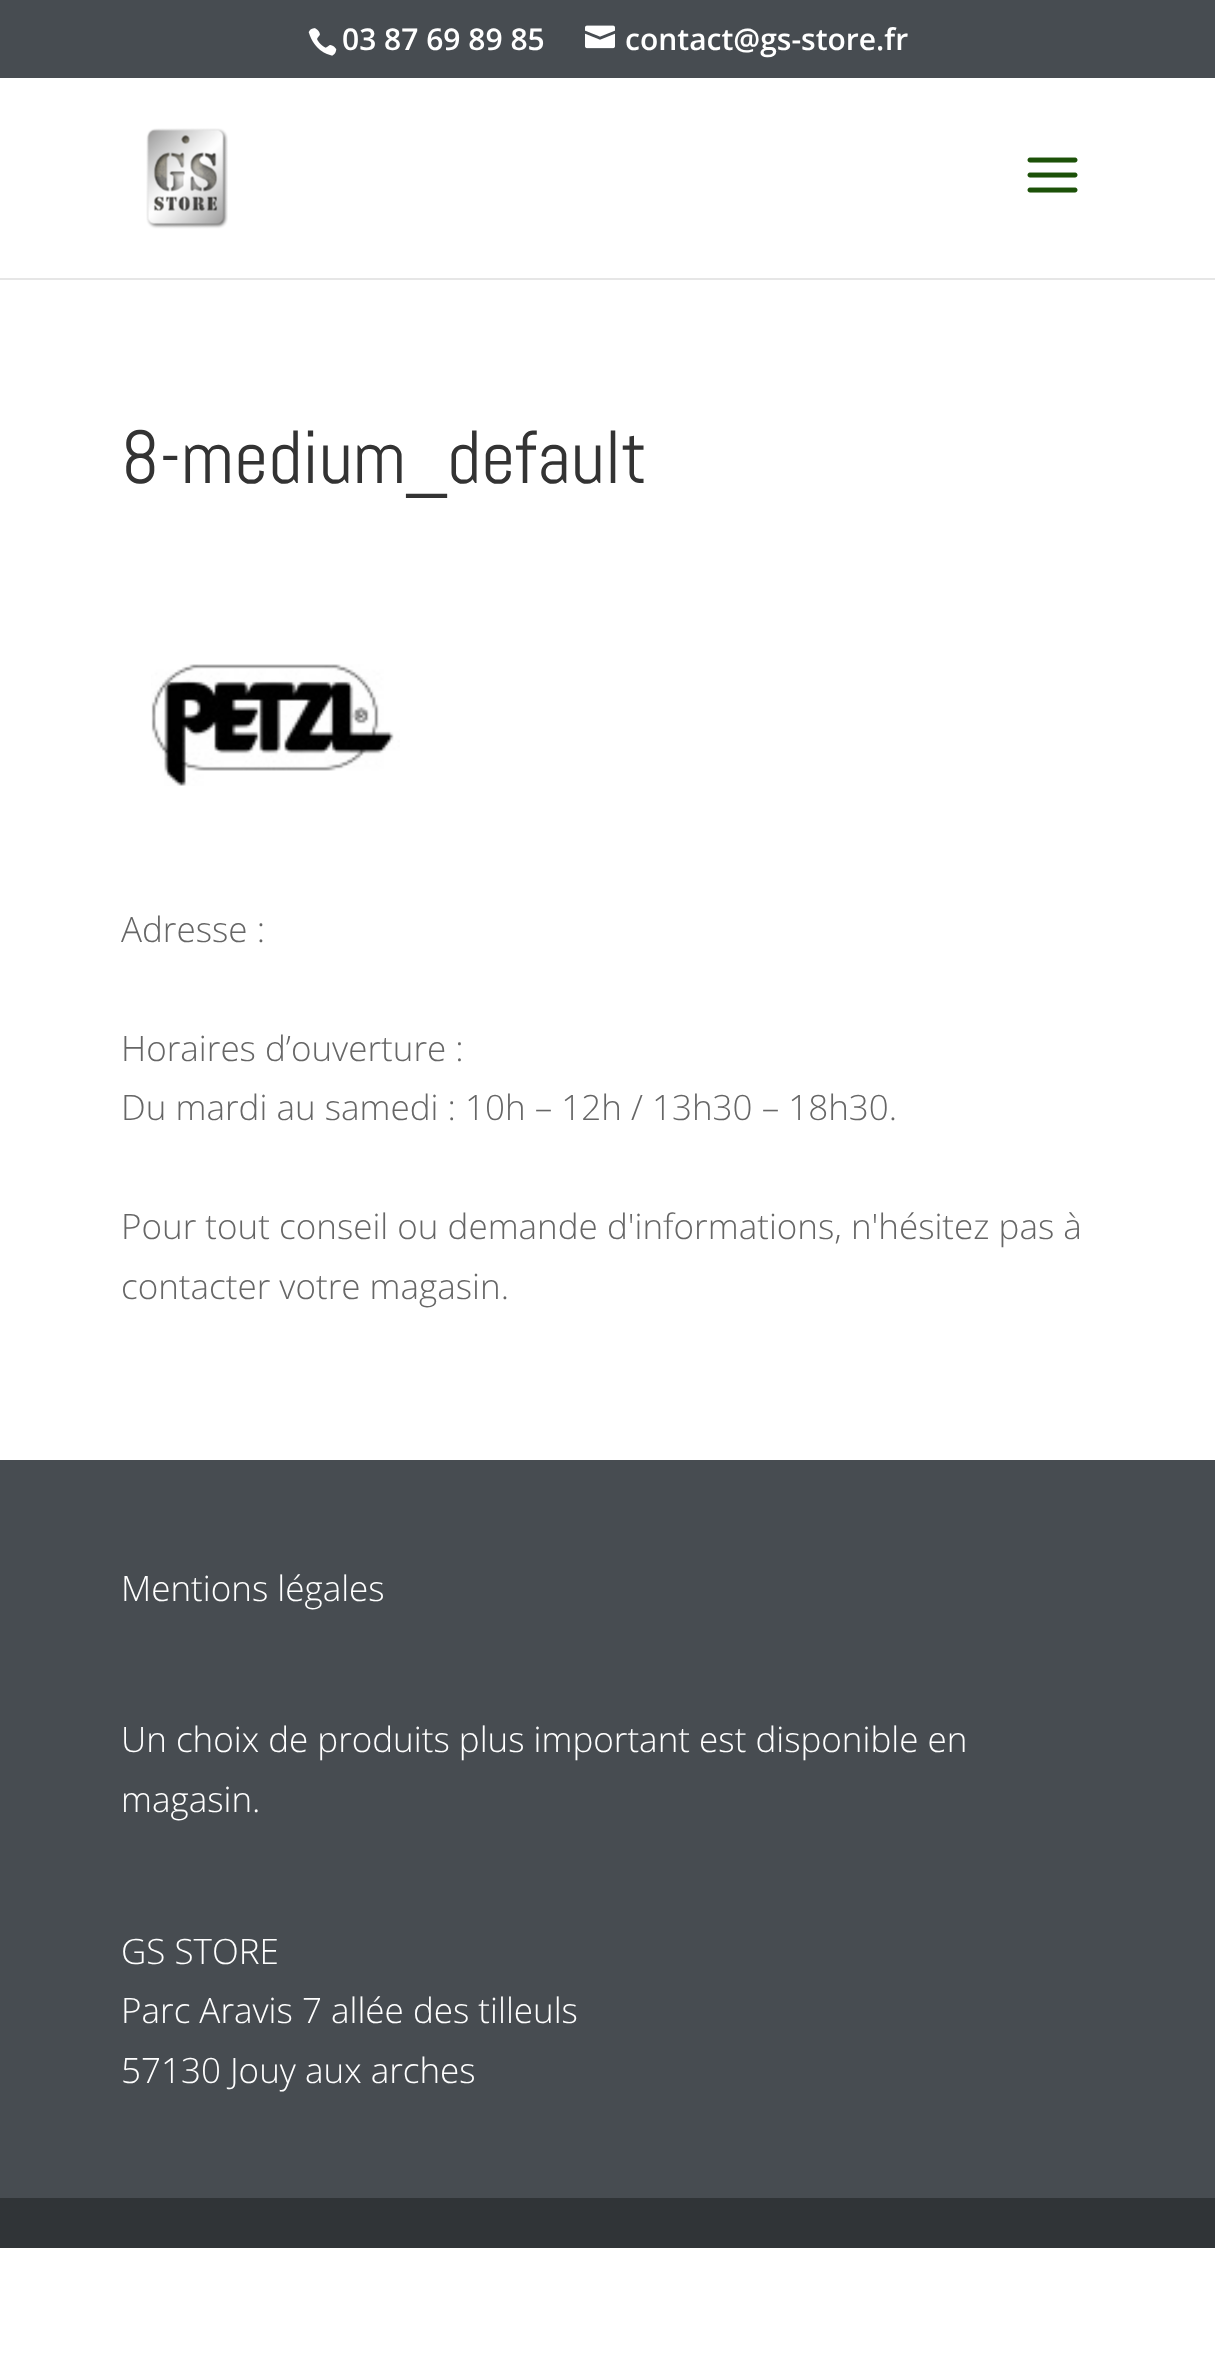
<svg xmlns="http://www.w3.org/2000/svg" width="1215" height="2364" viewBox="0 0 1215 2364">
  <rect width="100%" height="100%" fill="rgb(255,255,255)"/>
  <rect x="0" y="0" width="1215" height="78" fill="rgb(71,76,81)"/>
  <image x="308" y="28" width="29" height="28" href="pic1.png"/>
  <text x="342" y="50" font-family="Open Sans" font-size="30" font-weight="600" fill="rgb(255,255,255)">03 87 69 89 85</text>
  <image x="585" y="25" width="30" height="24" href="pic2.png"/>
  <text x="625" y="50" font-family="Open Sans" font-size="30" font-weight="600" fill="rgb(255,255,255)">contact@gs-store.fr</text>
  <rect x="0" y="278" width="1215" height="2" fill="rgb(230,230,230)"/>
  <image x="146" y="128" width="82" height="101" href="pic3.png"/>
  <image x="1027" y="157" width="51" height="36" href="pic4.png"/>
  <text x="121" y="483" font-family="Abel" font-size="75" fill="rgb(51,51,51)">8-medium_default</text>
  <image x="151" y="664" width="249" height="122" href="pic5.png"/>
  <g font-family="Open Sans" font-size="35" font-weight="300" fill="rgb(102,102,102)">
    <text x="121" y="942">Adresse :</text>
    <text>
      <tspan x="121" y="1061">Horaires d’ouverture :</tspan>
      <tspan x="121" y="1120">Du mardi au samedi : 10h – 12h / 13h30 – 18h30.</tspan>
    </text>
    <text>
      <tspan x="121" y="1239">Pour tout conseil ou demande d'informations, n'hésitez pas à</tspan>
      <tspan x="121" y="1299">contacter votre magasin.</tspan>
    </text>
  </g>
  <rect x="0" y="1460" width="1215" height="738" fill="rgb(71,76,81)"/>
  <g font-family="Open Sans" font-size="35" font-weight="300" fill="rgb(255,255,255)">
    <text x="121" y="1601">Mentions légales</text>
    <text>
      <tspan x="121" y="1752">Un choix de produits plus important est disponible en</tspan>
      <tspan x="121" y="1812">magasin.</tspan>
    </text>
    <text>
      <tspan x="121" y="1964">GS STORE</tspan>
      <tspan x="121" y="2023">Parc Aravis 7 allée des tilleuls</tspan>
      <tspan x="121" y="2083">57130 Jouy aux arches</tspan>
    </text>
  </g>
  <rect x="0" y="2198" width="1215" height="50" fill="rgb(48,52,55)"/>
</svg>
